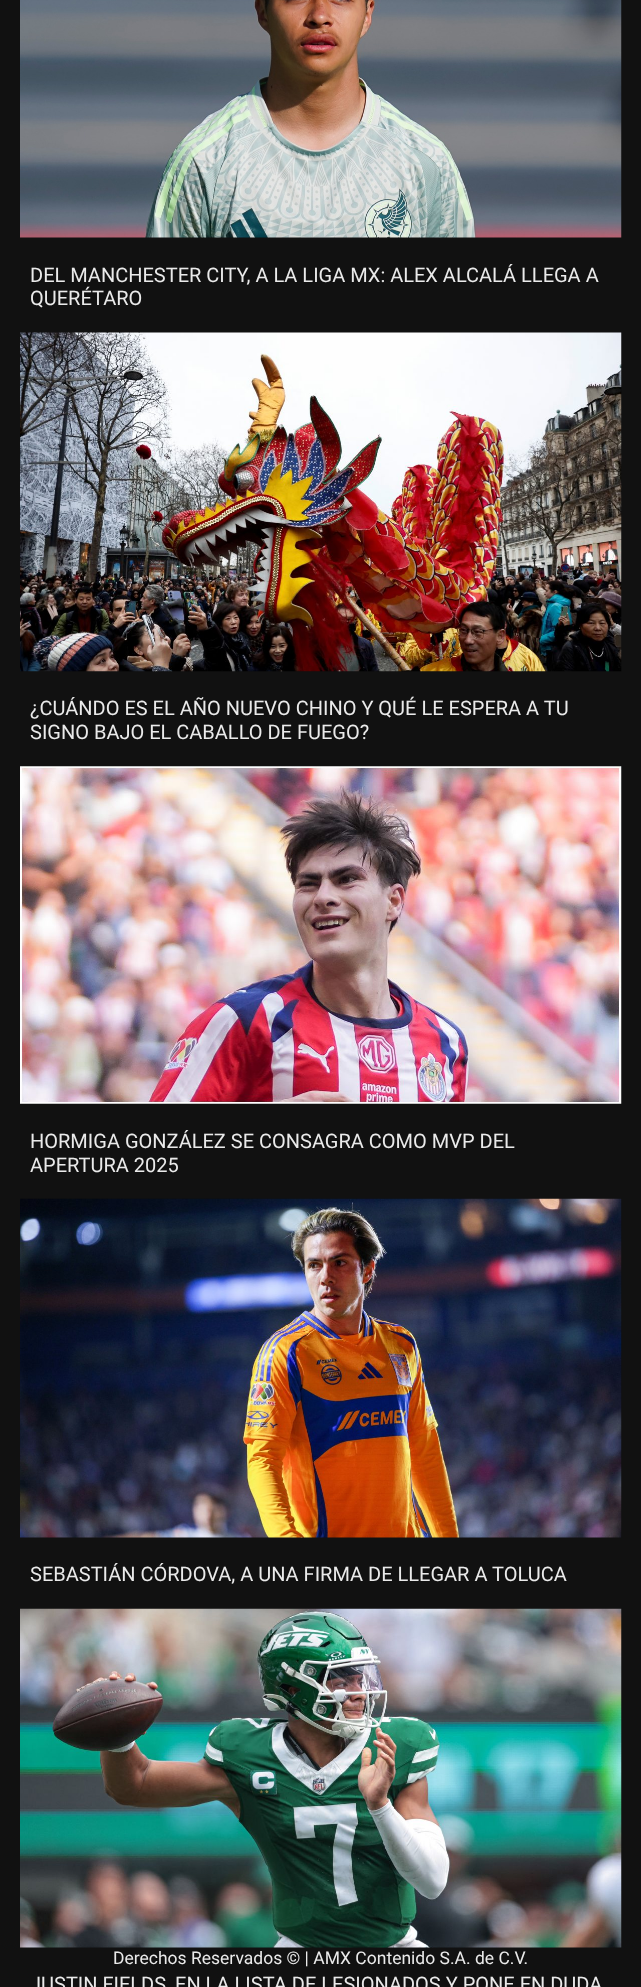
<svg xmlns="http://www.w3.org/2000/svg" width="641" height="1987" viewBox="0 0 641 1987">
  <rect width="100%" height="100%" fill="rgb(17,17,17)"/>
  <image x="20" y="0" width="602" height="238" href="pic1.png"/>
  <g font-family="Roboto" font-size="20" fill="rgb(234,234,234)">
    <text>
      <tspan x="30" y="282">DEL MANCHESTER CITY, A LA LIGA MX: ALEX ALCALÁ LLEGA A</tspan>
      <tspan x="30" y="305">QUERÉTARO</tspan>
    </text>
  </g>
  <image x="20" y="332" width="602" height="340" href="pic2.png"/>
  <g font-family="Roboto" font-size="20" fill="rgb(234,234,234)">
    <text>
      <tspan x="30" y="715">¿CUÁNDO ES EL AÑO NUEVO CHINO Y QUÉ LE ESPERA A TU</tspan>
      <tspan x="30" y="739">SIGNO BAJO EL CABALLO DE FUEGO?</tspan>
    </text>
  </g>
  <image x="20" y="766" width="602" height="338" href="pic3.png"/>
  <g font-family="Roboto" font-size="20" fill="rgb(234,234,234)">
    <text>
      <tspan x="30" y="1148">HORMIGA GONZÁLEZ SE CONSAGRA COMO MVP DEL</tspan>
      <tspan x="30" y="1172">APERTURA 2025</tspan>
    </text>
  </g>
  <image x="20" y="1198" width="602" height="340" href="pic4.png"/>
  <text x="30" y="1581" font-family="Roboto" font-size="20" fill="rgb(234,234,234)">SEBASTIÁN CÓRDOVA, A UNA FIRMA DE LLEGAR A TOLUCA</text>
  <image x="20" y="1608" width="602" height="340" href="pic5.png"/>
  <text x="30" y="1991" font-family="Roboto" font-size="20" fill="rgb(234,234,234)">JUSTIN FIELDS, EN LA LISTA DE LESIONADOS Y PONE EN DUDA</text>
  <text x="113" y="1964" font-family="Roboto" font-size="17.5" fill="rgb(234,234,234)">Derechos Reservados © | AMX Contenido S.A. de C.V.</text>
</svg>
